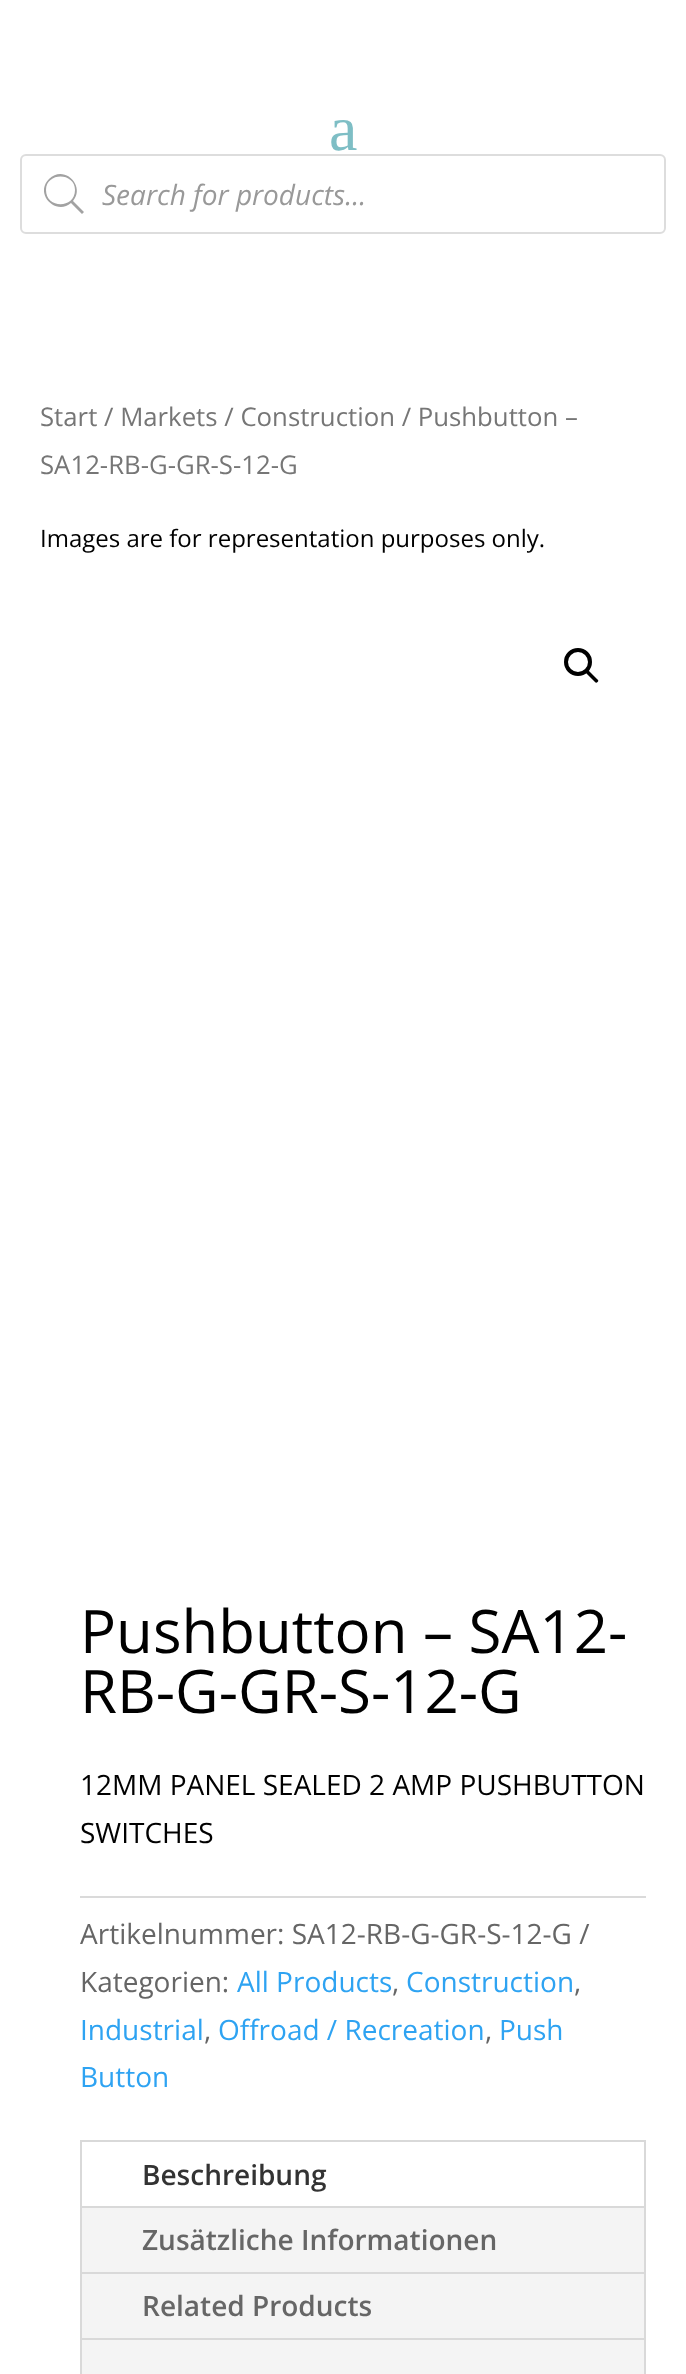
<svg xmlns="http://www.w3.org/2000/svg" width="686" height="2374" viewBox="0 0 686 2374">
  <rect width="100%" height="100%" fill="rgb(255,255,255)"/>
  <text x="329" y="150" font-family="Liberation Serif" font-size="64" fill="rgb(126,190,197)">a</text>
  <rect x="21" y="155" width="644" height="78" rx="5" fill="none" stroke="rgb(221,221,221)" stroke-width="2"/>
  <path d="M84 212L73 201C86 186 64 164 49 179C34 194 56 216 71 203L82 214ZM46 190C46 172 75 172 75 190C75 209 46 209 46 190Z" fill="rgb(162,162,162)"/>
  <text x="102" y="205" font-family="Open Sans" font-size="28" font-style="italic" fill="rgb(153,153,153)">Search for products...</text>
  <g font-family="Open Sans" font-size="25.75" fill="rgb(118,118,118)">
    <text>
      <tspan x="40" y="426">Start / Markets / Construction / Pushbutton –</tspan>
      <tspan x="40" y="474">SA12-RB-G-GR-S-12-G</tspan>
    </text>
  </g>
  <text x="40" y="547" font-family="Open Sans" font-size="24" fill="rgb(0,0,0)">Images are for representation purposes only.</text>
  <circle cx="578" cy="662" r="12" fill="none" stroke="rgb(0,0,0)" stroke-width="4"/>
  <path d="M586.5 671C587 670 588.5 670 589 671L597.5 679.5C598.5 680 598.5 681.5 597.5 682C597 683 595.5 683 595 682L586.5 673.5C585.5 673 585.5 671.5 586.5 671Z" fill="rgb(0,0,0)"/>
  <g font-family="Open Sans" font-size="60" fill="rgb(0,0,0)">
    <text>
      <tspan x="80" y="1653">Pushbutton – SA12-</tspan>
      <tspan x="80" y="1713">RB-G-GR-S-12-G</tspan>
    </text>
  </g>
  <g font-family="Open Sans" font-size="28" fill="rgb(0,0,0)">
    <text>
      <tspan x="80" y="1795">12MM PANEL SEALED 2 AMP PUSHBUTTON</tspan>
      <tspan x="80" y="1843">SWITCHES</tspan>
    </text>
  </g>
  <rect x="80" y="1896" width="566" height="2" fill="rgb(218,218,218)"/>
  <g font-family="Open Sans" font-size="28" fill="rgb(102,102,102)">
    <text>
      <tspan x="80" y="1944">Artikelnummer: SA12-RB-G-GR-S-12-G /</tspan>
      <tspan x="80" y="1992">Kategorien:</tspan>
    </text>
  </g>
  <text x="237" y="1992" font-family="Open Sans" font-size="28" fill="rgb(46,163,242)">All Products</text>
  <text x="392" y="1992" font-family="Open Sans" font-size="28" fill="rgb(102,102,102)">,</text>
  <text x="406" y="1992" font-family="Open Sans" font-size="28" fill="rgb(46,163,242)">Construction</text>
  <text x="574" y="1992" font-family="Open Sans" font-size="28" fill="rgb(102,102,102)">,</text>
  <text x="80" y="2040" font-family="Open Sans" font-size="28" fill="rgb(46,163,242)">Industrial</text>
  <text x="204" y="2040" font-family="Open Sans" font-size="28" fill="rgb(102,102,102)">,</text>
  <text x="218" y="2040" font-family="Open Sans" font-size="28" fill="rgb(46,163,242)">Offroad / Recreation</text>
  <text x="485" y="2040" font-family="Open Sans" font-size="28" fill="rgb(102,102,102)">,</text>
  <g font-family="Open Sans" font-size="28" fill="rgb(46,163,242)">
    <text x="499" y="2040">Push</text>
    <text x="80" y="2087">Button</text>
  </g>
  <rect x="81" y="2141" width="564" height="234" fill="none" stroke="rgb(217,217,217)" stroke-width="2"/>
  <rect x="82" y="2208" width="562" height="166" fill="rgb(244,244,244)"/>
  <rect x="82" y="2206" width="562" height="2" fill="rgb(217,217,217)"/>
  <text x="142" y="2185" font-family="Open Sans" font-size="28" font-weight="600" fill="rgb(51,51,51)">Beschreibung</text>
  <rect x="82" y="2272" width="562" height="2" fill="rgb(217,217,217)"/>
  <text x="142" y="2250" font-family="Open Sans" font-size="28" font-weight="600" fill="rgb(102,102,102)">Zusätzliche Informationen</text>
  <rect x="82" y="2338" width="562" height="2" fill="rgb(217,217,217)"/>
  <text x="142" y="2316" font-family="Open Sans" font-size="28" font-weight="600" fill="rgb(102,102,102)">Related Products</text>
</svg>
